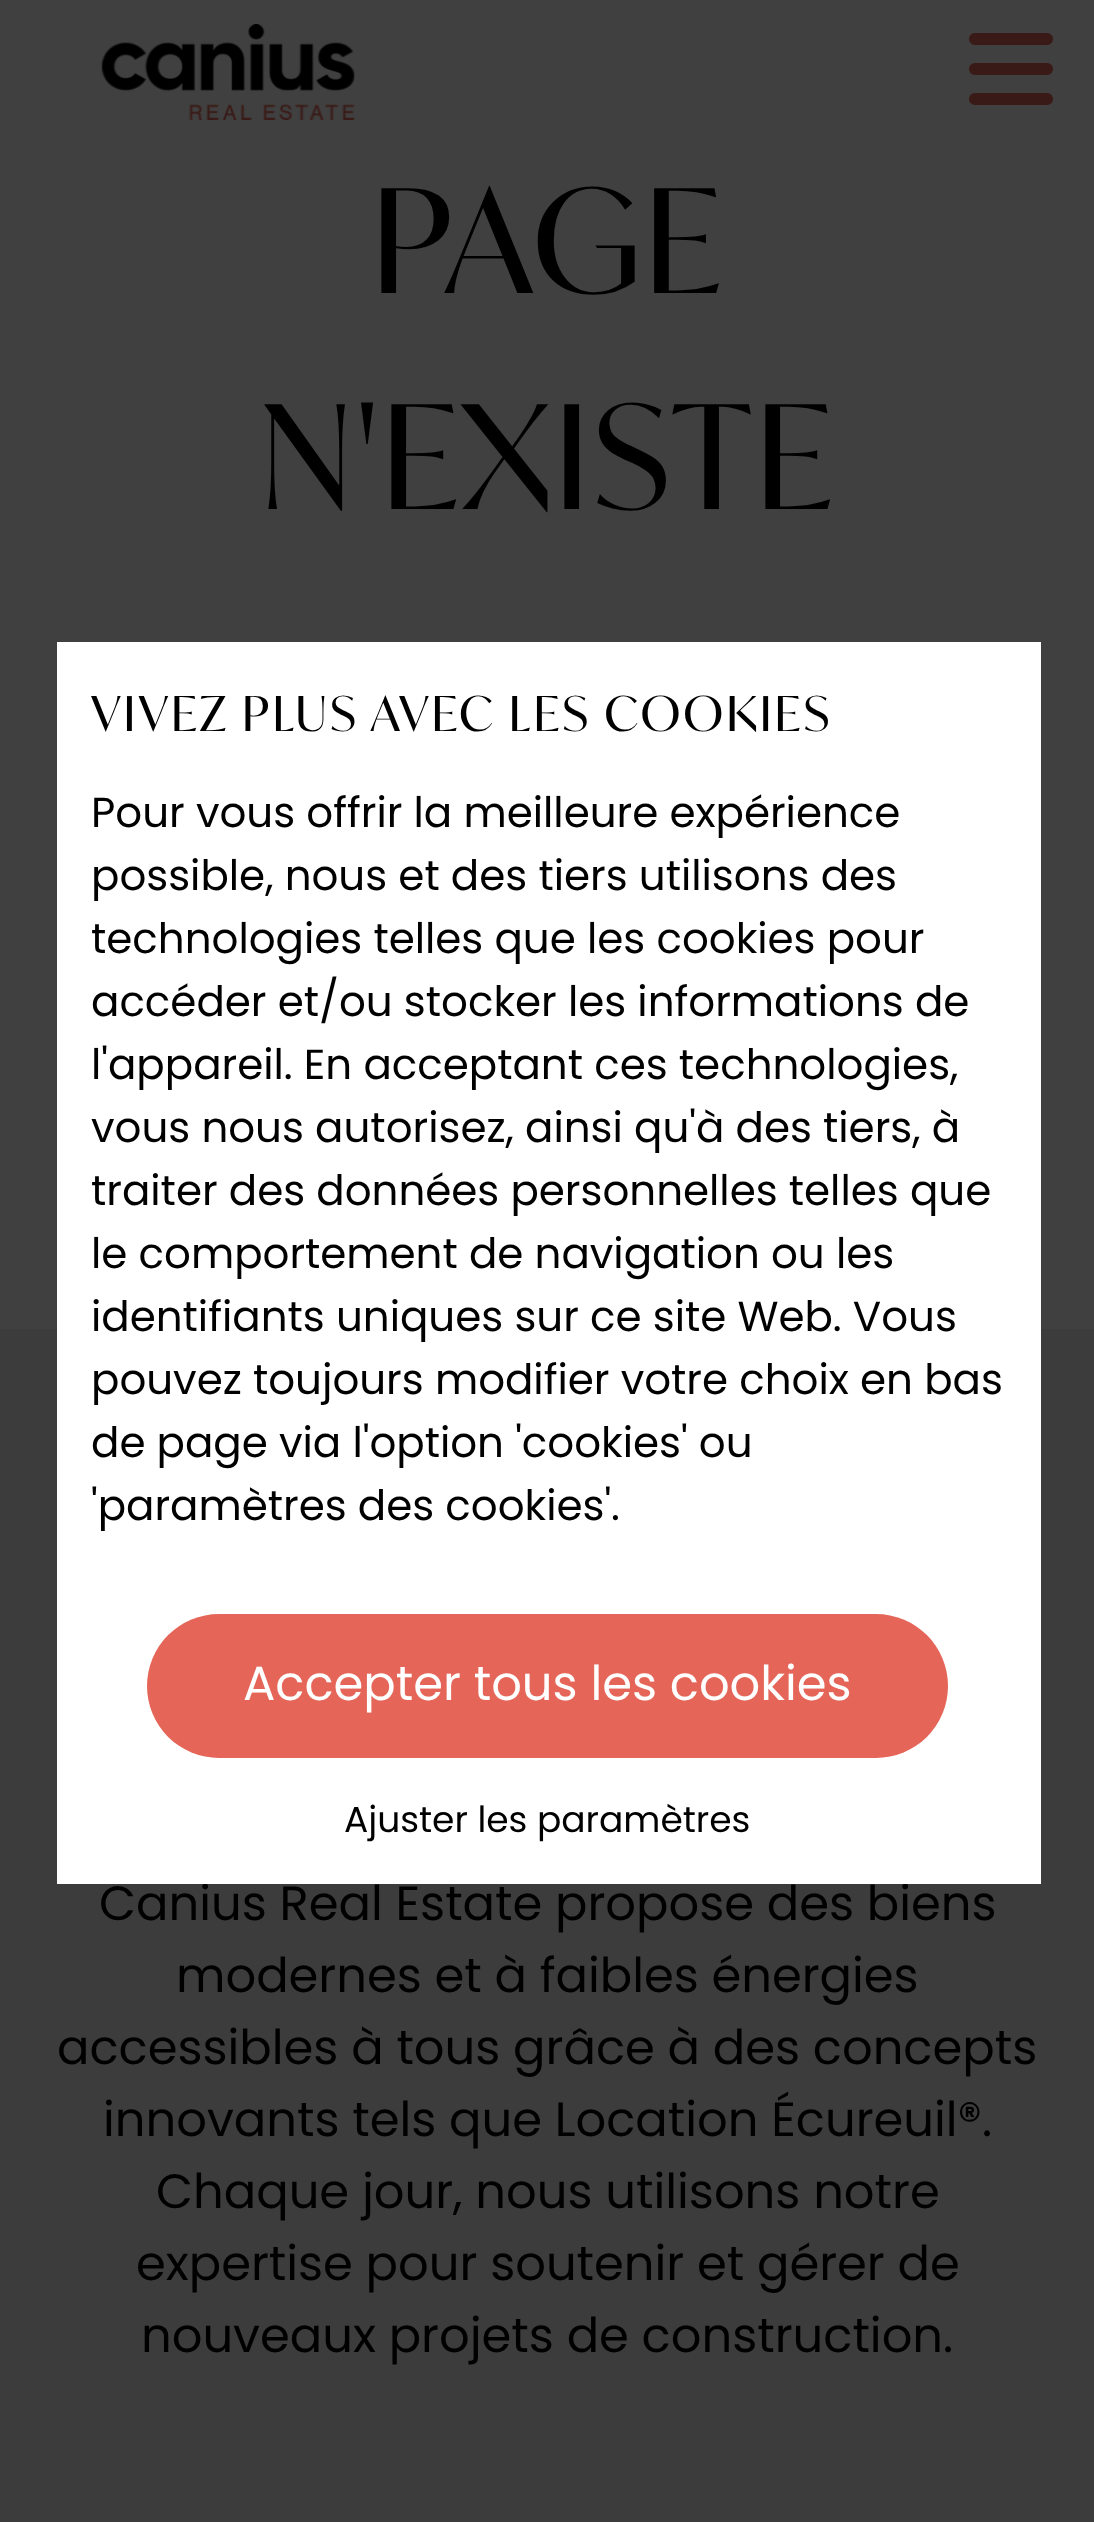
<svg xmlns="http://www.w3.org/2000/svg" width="1094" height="2522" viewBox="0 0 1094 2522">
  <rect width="100%" height="100%" fill="rgb(64,64,64)"/>
  <image x="101" y="24" width="254" height="96" href="pic1.png"/>
  <image x="969" y="33" width="84" height="72" href="pic2.png"/>
  <g font-family="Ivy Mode" font-size="144" letter-spacing="3" fill="rgb(0,0,0)">
    <text x="371" y="293">PAGE</text>
    <text x="259" y="509">N'EXISTE</text>
  </g>
  <rect x="0" y="1329" width="1094" height="1193" fill="rgb(60,60,60)"/>
  <text x="99" y="1920" font-family="Poppins" font-size="48" fill="rgb(0,0,0)">Canius Real Estate propose des biens</text>
  <rect x="57" y="642" width="984" height="1242" fill="rgb(255,255,255)"/>
  <text x="91" y="731" font-family="Ivy Mode" font-size="48" letter-spacing="3" fill="rgb(0,0,0)">VIVEZ PLUS AVEC LES COOKIES</text>
  <g font-family="Poppins" font-size="42" fill="rgb(0,0,0)">
    <text>
      <tspan x="91" y="827">Pour vous offrir la meilleure expérience</tspan>
      <tspan x="91" y="890">possible, nous et des tiers utilisons des</tspan>
      <tspan x="91" y="953">technologies telles que les cookies pour</tspan>
      <tspan x="91" y="1016">accéder et/ou stocker les informations de</tspan>
      <tspan x="91" y="1079">l'appareil. En acceptant ces technologies,</tspan>
      <tspan x="91" y="1142">vous nous autorisez, ainsi qu'à des tiers, à</tspan>
      <tspan x="91" y="1205">traiter des données personnelles telles que</tspan>
      <tspan x="91" y="1268">le comportement de navigation ou les</tspan>
      <tspan x="91" y="1331">identifiants uniques sur ce site Web. Vous</tspan>
      <tspan x="91" y="1394">pouvez toujours modifier votre choix en bas</tspan>
      <tspan x="91" y="1457">de page via l'option 'cookies' ou</tspan>
      <tspan x="91" y="1520">'paramètres des cookies'.</tspan>
    </text>
  </g>
  <rect x="147" y="1614" width="801" height="144" rx="72" fill="rgb(229,102,89)"/>
  <text x="243" y="1700" font-family="Poppins" font-size="48" fill="rgb(255,255,255)">Accepter tous les cookies</text>
  <text x="344" y="1832" font-family="Poppins" font-size="36" fill="rgb(0,0,0)">Ajuster les paramètres</text>
  <g font-family="Poppins" font-size="48" fill="rgb(0,0,0)">
    <text x="176" y="1992">modernes et à faibles énergies</text>
    <text x="57" y="2064">accessibles à tous grâce à des concepts</text>
    <text x="103" y="2136">innovants tels que Location Écureuil®.</text>
    <text x="156" y="2208">Chaque jour, nous utilisons notre</text>
    <text x="136" y="2280">expertise pour soutenir et gérer de</text>
    <text x="141" y="2352">nouveaux projets de construction.</text>
  </g>
</svg>
